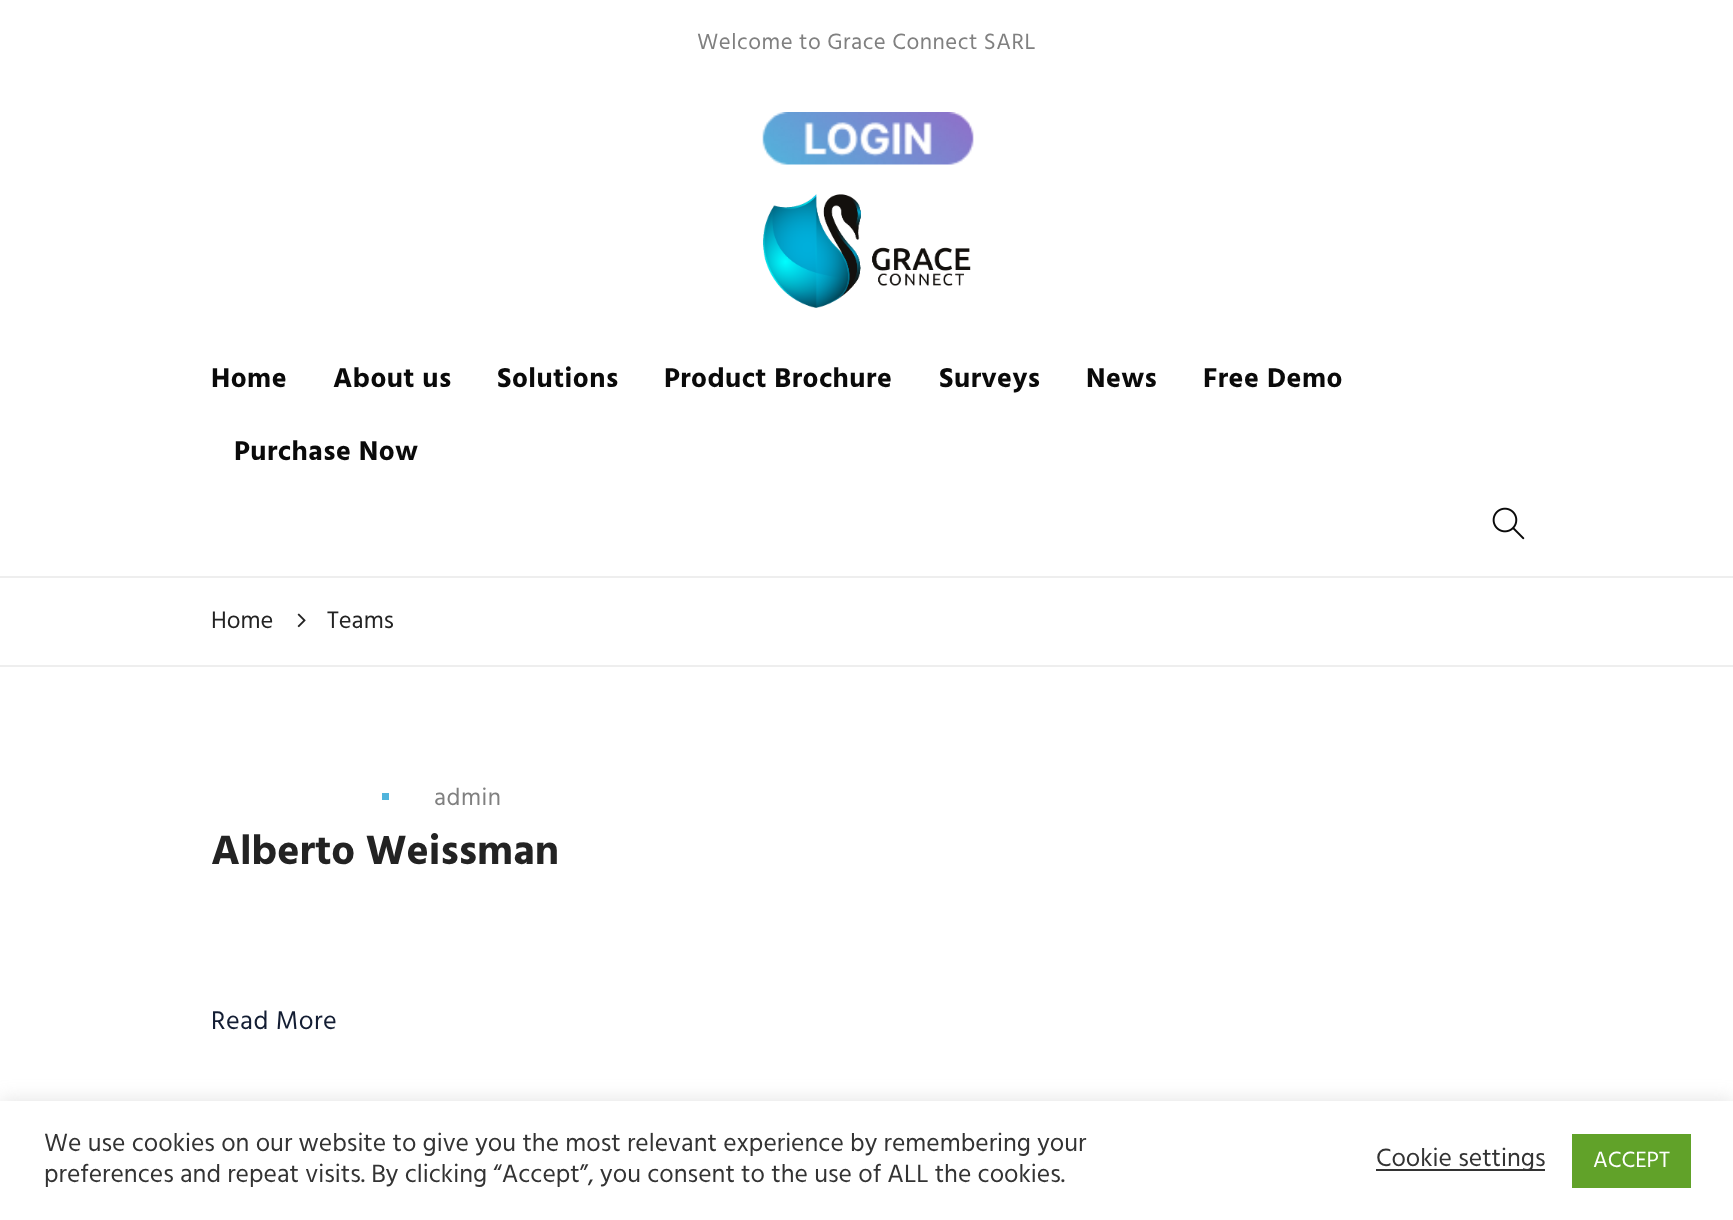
<svg xmlns="http://www.w3.org/2000/svg" width="1733" height="1220" viewBox="0 0 1733 1220">
  <rect width="100%" height="100%" fill="rgb(255,255,255)"/>
  <text x="697" y="49" font-family="Hind" font-size="22.75" letter-spacing="0.5" fill="rgb(128,128,128)">Welcome to Grace Connect SARL</text>
  <image x="762" y="112" width="212" height="53" href="pic1.png"/>
  <image x="763" y="194" width="208" height="114" href="pic2.png"/>
  <g font-family="Hind" font-size="28" font-weight="bold" letter-spacing="0.5" fill="rgb(10,10,10)">
    <text x="211" y="387">Home</text>
    <text x="333" y="387">About us</text>
    <text x="497" y="387">Solutions</text>
    <text x="664" y="387">Product Brochure</text>
    <text x="939" y="387">Surveys</text>
    <text x="1086" y="387">News</text>
    <text x="1203" y="387">Free Demo</text>
    <text x="234" y="460">Purchase Now</text>
  </g>
  <image x="1492" y="507" width="33" height="33" href="pic3.png"/>
  <rect x="0" y="576" width="1733" height="2" fill="rgb(238,238,238)"/>
  <rect x="0" y="665" width="1733" height="2" fill="rgb(238,238,238)"/>
  <text x="211" y="628" font-family="Hind" font-size="24.5" fill="rgb(35,35,35)">Home</text>
  <image x="297" y="613" width="9" height="15" href="pic4.png"/>
  <text x="327" y="628" font-family="Hind" font-size="24.5" fill="rgb(35,35,35)">Teams</text>
  <rect x="382" y="793" width="7" height="7" fill="rgb(80,180,220)"/>
  <text x="434" y="805" font-family="Hind" font-size="24.5" letter-spacing="0.5" fill="rgb(128,128,128)">admin</text>
  <text x="211" y="864" font-family="Hind" font-size="42" font-weight="bold" fill="rgb(35,35,35)">Alberto Weissman</text>
  <text x="211" y="1029" font-family="Hind" font-size="26.25" letter-spacing="0.5" fill="rgb(19,29,51)">Read More</text>
  <rect x="0" y="1099" width="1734" height="121" fill="rgba(172,171,171,0.3)" filter="blur(9px)"/>
  <rect x="0" y="1101" width="1733" height="119" fill="rgb(255,255,255)"/>
  <g font-family="Hind" font-size="25.65" fill="rgb(51,51,51)">
    <text>
      <tspan x="44" y="1151">We use cookies on our website to give you the most relevant experience by remembering your</tspan>
      <tspan x="44" y="1182">preferences and repeat visits. By clicking “Accept”, you consent to the use of ALL the cookies.</tspan>
    </text>
  </g>
  <rect x="1376" y="1169" width="169" height="2" fill="rgb(51,51,51)"/>
  <text x="1376" y="1166" font-family="Hind" font-size="25.65" fill="rgb(51,51,51)">Cookie settings</text>
  <rect x="1572" y="1134" width="119" height="54" fill="rgb(97,162,41)"/>
  <text x="1593" y="1167" font-family="Hind" font-size="22.75" fill="rgb(255,255,255)">ACCEPT</text>
</svg>
